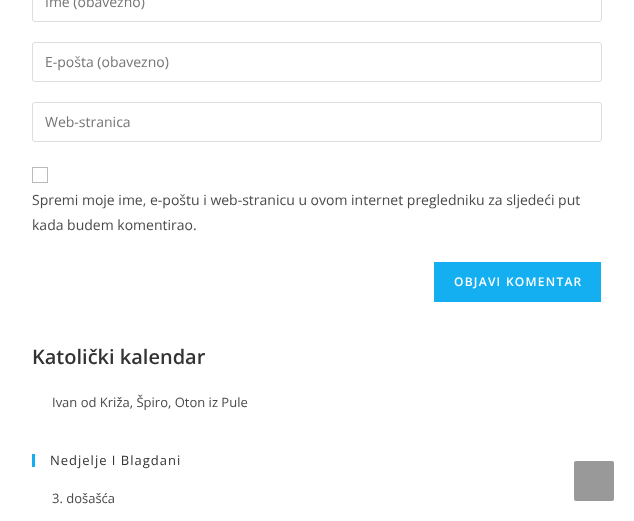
<svg xmlns="http://www.w3.org/2000/svg" width="634" height="521" viewBox="0 0 634 521">
  <rect width="100%" height="100%" fill="rgb(255,255,255)"/>
  <rect x="32.5" y="-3.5" width="569" height="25" rx="2.5" fill="none" stroke="rgb(221,221,221)"/>
  <text x="45" y="7" font-family="Open Sans" font-size="14" fill="rgb(117,117,117)">Ime (obavezno)</text>
  <rect x="32.5" y="42.5" width="569" height="39" rx="2.5" fill="none" stroke="rgb(221,221,221)"/>
  <text x="45" y="67" font-family="Open Sans" font-size="14" fill="rgb(117,117,117)">E-pošta (obavezno)</text>
  <rect x="32.5" y="102.5" width="569" height="39" rx="2.5" fill="none" stroke="rgb(221,221,221)"/>
  <text x="45" y="127" font-family="Open Sans" font-size="14" fill="rgb(117,117,117)">Web-stranica</text>
  <rect x="32.5" y="167.5" width="15" height="15" fill="none" stroke="rgb(187,187,187)"/>
  <g font-family="Open Sans" font-size="14" fill="rgb(74,74,74)">
    <text>
      <tspan x="32" y="205">Spremi moje ime, e-poštu i web-stranicu u ovom internet pregledniku za sljedeći put</tspan>
      <tspan x="32" y="230">kada budem komentirao.</tspan>
    </text>
  </g>
  <rect x="434" y="262" width="167" height="40" fill="rgb(19,175,240)"/>
  <text x="454" y="286" font-family="Open Sans" font-size="12" font-weight="600" letter-spacing="1.25" fill="rgb(255,255,255)">OBJAVI KOMENTAR</text>
  <text x="32" y="364" font-family="Open Sans" font-size="20" font-weight="600" fill="rgb(51,51,51)">Katolički kalendar</text>
  <text x="52" y="407" font-family="Open Sans" font-size="13" fill="rgb(74,74,74)">Ivan od Križa, Špiro, Oton iz Pule</text>
  <rect x="32" y="454" width="3" height="13" fill="rgb(19,175,240)"/>
  <text x="50" y="465" font-family="Open Sans" font-size="13" letter-spacing="1" fill="rgb(51,51,51)">Nedjelje I Blagdani</text>
  <text x="52" y="503" font-family="Open Sans" font-size="13" fill="rgb(74,74,74)">3. došašća</text>
  <rect x="574" y="461" width="40" height="40" rx="2" fill="rgb(153,153,153)"/>
</svg>
